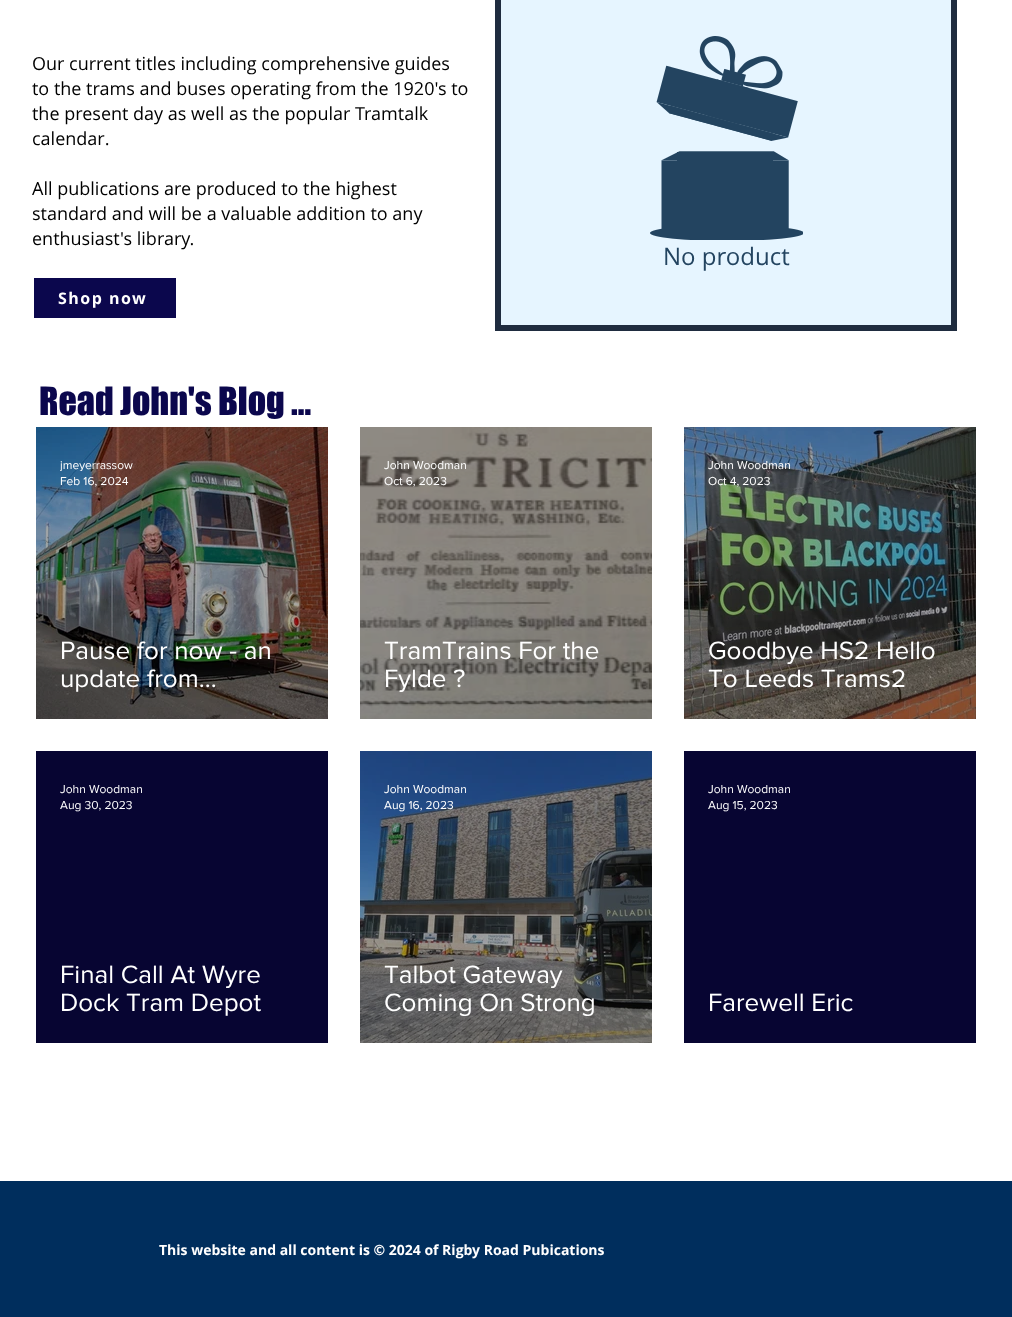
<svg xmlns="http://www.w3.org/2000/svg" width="1012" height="1317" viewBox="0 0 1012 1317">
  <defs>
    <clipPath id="clip1"><rect x="60" y="458" width="73" height="13"/></clipPath>
  </defs>
  <rect width="100%" height="100%" fill="rgb(255,255,255)"/>
  <g font-family="Open Sans" font-size="18" fill="rgb(0,0,0)">
    <text>
      <tspan x="32" y="70">Our current titles including comprehensive guides</tspan>
      <tspan x="32" y="95">to the trams and buses operating from the 1920's to</tspan>
      <tspan x="32" y="120">the present day as well as the popular Tramtalk</tspan>
      <tspan x="32" y="145">calendar.</tspan>
    </text>
    <text>
      <tspan x="32" y="195">All publications are produced to the highest</tspan>
      <tspan x="32" y="220">standard and will be a valuable addition to any</tspan>
      <tspan x="32" y="245">enthusiast's library.</tspan>
    </text>
  </g>
  <rect x="498" y="-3" width="456" height="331" fill="none" stroke="rgb(31,44,63)" stroke-width="6"/>
  <rect x="501" y="0" width="450" height="325" fill="rgb(230,245,255)"/>
  <image x="650" y="36" width="153" height="204" href="pic1.png"/>
  <text x="663" y="265" font-family="Open Sans" font-size="24" fill="rgb(35,68,96)">No product</text>
  <rect x="34" y="278" width="142" height="40" fill="rgb(11,7,77)"/>
  <text x="58" y="304" font-family="Open Sans" font-size="16" font-weight="bold" letter-spacing="1.5" fill="rgb(255,255,255)">Shop now</text>
  <text x="39" y="415" font-family="'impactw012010'" font-size="36" fill="rgb(11,7,77)">Read John's Blog ...</text>
  <image x="36" y="427" width="292" height="292" href="pic2.png"/>
  <g clip-path="url(#clip1)">
    <text x="60" y="469" font-family="'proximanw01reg'" font-size="12" fill="rgb(255,255,255)">jmeyerrassow</text>
  </g>
  <text x="60" y="485" font-family="'proximanw01reg'" font-size="12" fill="rgb(255,255,255)">Feb 16, 2024</text>
  <g font-family="'proximanw01reg'" font-size="26" fill="rgb(255,255,255)">
    <text>
      <tspan x="60" y="659">Pause for now - an</tspan>
      <tspan x="60" y="687">update from…</tspan>
    </text>
  </g>
  <image x="360" y="427" width="292" height="292" href="pic3.png"/>
  <g font-family="'proximanw01reg'" font-size="12" fill="rgb(255,255,255)">
    <text>
      <tspan x="384" y="469">John Woodman</tspan>
      <tspan x="384" y="485">Oct 6, 2023</tspan>
    </text>
  </g>
  <g font-family="'proximanw01reg'" font-size="26" fill="rgb(255,255,255)">
    <text>
      <tspan x="384" y="659">TramTrains For the</tspan>
      <tspan x="384" y="687">Fylde ?</tspan>
    </text>
  </g>
  <image x="684" y="427" width="292" height="292" href="pic4.png"/>
  <g font-family="'proximanw01reg'" font-size="12" fill="rgb(255,255,255)">
    <text>
      <tspan x="708" y="469">John Woodman</tspan>
      <tspan x="708" y="485">Oct 4, 2023</tspan>
    </text>
  </g>
  <g font-family="'proximanw01reg'" font-size="26" fill="rgb(255,255,255)">
    <text>
      <tspan x="708" y="659">Goodbye HS2 Hello</tspan>
      <tspan x="708" y="687">To Leeds Trams2</tspan>
    </text>
  </g>
  <rect x="36" y="751" width="292" height="292" fill="rgb(7,5,50)"/>
  <g font-family="'proximanw01reg'" font-size="12" fill="rgb(255,255,255)">
    <text>
      <tspan x="60" y="793">John Woodman</tspan>
      <tspan x="60" y="809">Aug 30, 2023</tspan>
    </text>
  </g>
  <g font-family="'proximanw01reg'" font-size="26" fill="rgb(255,255,255)">
    <text>
      <tspan x="60" y="983">Final Call At Wyre</tspan>
      <tspan x="60" y="1011">Dock Tram Depot</tspan>
    </text>
  </g>
  <image x="360" y="751" width="292" height="292" href="pic5.png"/>
  <g font-family="'proximanw01reg'" font-size="12" fill="rgb(255,255,255)">
    <text>
      <tspan x="384" y="793">John Woodman</tspan>
      <tspan x="384" y="809">Aug 16, 2023</tspan>
    </text>
  </g>
  <g font-family="'proximanw01reg'" font-size="26" fill="rgb(255,255,255)">
    <text>
      <tspan x="384" y="983">Talbot Gateway</tspan>
      <tspan x="384" y="1011">Coming On Strong</tspan>
    </text>
  </g>
  <rect x="684" y="751" width="292" height="292" fill="rgb(7,5,50)"/>
  <g font-family="'proximanw01reg'" font-size="12" fill="rgb(255,255,255)">
    <text>
      <tspan x="708" y="793">John Woodman</tspan>
      <tspan x="708" y="809">Aug 15, 2023</tspan>
    </text>
  </g>
  <text x="708" y="1011" font-family="'proximanw01reg'" font-size="26" fill="rgb(255,255,255)">Farewell Eric</text>
  <rect x="0" y="1181" width="1012" height="136" fill="rgb(0,46,93)"/>
  <text x="159" y="1255" font-family="Open Sans" font-size="14" font-weight="bold" fill="rgb(255,255,255)">This website and all content is © 2024 of Rigby Road Pubications</text>
</svg>
